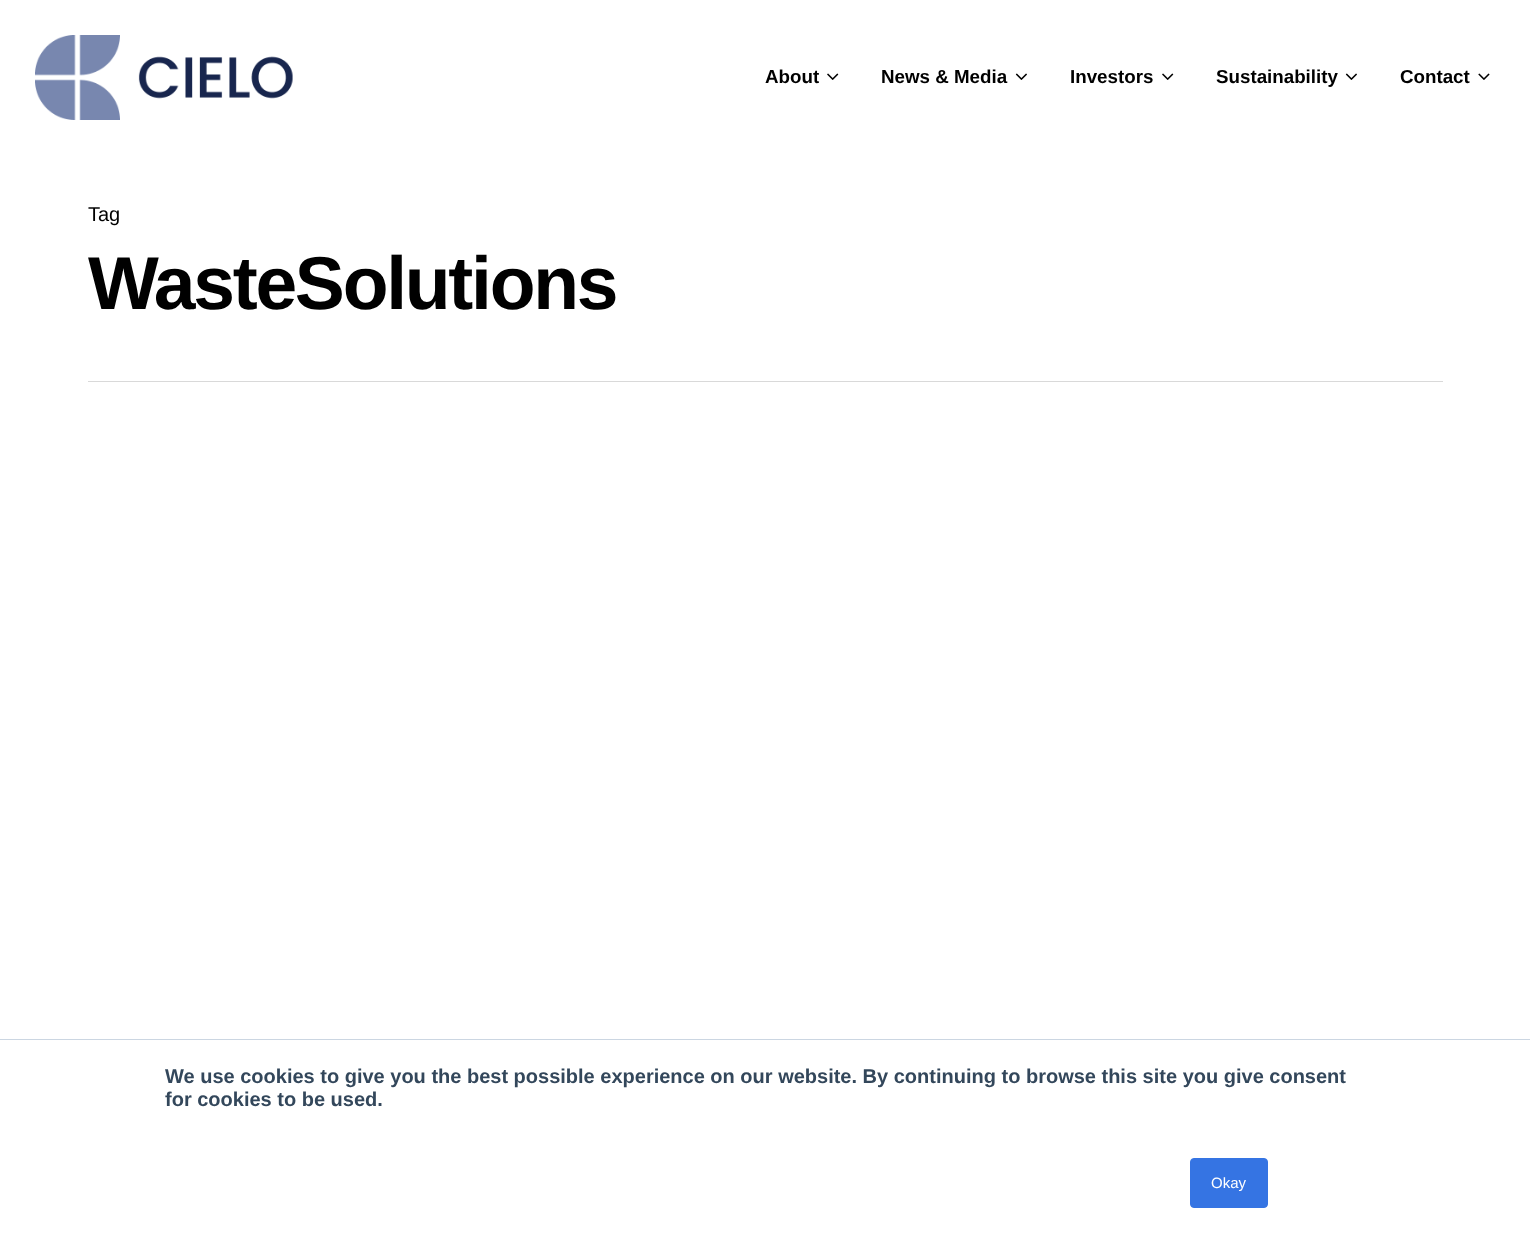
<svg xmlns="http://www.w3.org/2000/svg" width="1530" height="1239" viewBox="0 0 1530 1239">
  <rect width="100%" height="100%" fill="rgb(255,255,255)"/>
  <image x="35" y="35" width="258" height="85" href="pic1.png"/>
  <text x="765" y="83" font-family="Liberation Sans" font-size="18.75" font-weight="bold" fill="rgb(0,0,0)">About</text>
  <image x="827" y="73" width="12" height="7" href="pic2.png"/>
  <text x="881" y="83" font-family="Liberation Sans" font-size="18.75" font-weight="bold" fill="rgb(0,0,0)">News &amp; Media</text>
  <image x="1015" y="73" width="12" height="7" href="pic3.png"/>
  <text x="1070" y="83" font-family="Liberation Sans" font-size="18.75" font-weight="bold" fill="rgb(0,0,0)">Investors</text>
  <image x="1162" y="73" width="12" height="7" href="pic2.png"/>
  <text x="1216" y="83" font-family="Liberation Sans" font-size="18.75" font-weight="bold" fill="rgb(0,0,0)">Sustainability</text>
  <image x="1345" y="73" width="12" height="7" href="pic3.png"/>
  <text x="1400" y="83" font-family="Liberation Sans" font-size="18.75" font-weight="bold" fill="rgb(0,0,0)">Contact</text>
  <image x="1478" y="73" width="12" height="7" href="pic4.png"/>
  <rect x="88" y="381" width="1355" height="1" fill="rgb(217,217,217)"/>
  <text x="88" y="221" font-family="Liberation Sans" font-size="20" fill="rgb(0,0,0)">Tag</text>
  <text x="88" y="309" font-family="Liberation Sans" font-size="75" font-weight="bold" letter-spacing="-2.25" fill="rgb(0,0,0)">WasteSolutions</text>
  <rect x="0" y="1039" width="1530" height="1" fill="rgb(203,214,226)"/>
  <g font-family="Liberation Sans" font-size="20" font-weight="bold" fill="rgb(51,71,91)">
    <text>
      <tspan x="165" y="1083">We use cookies to give you the best possible experience on our website. By continuing to browse this site you give consent</tspan>
      <tspan x="165" y="1106">for cookies to be used.</tspan>
    </text>
  </g>
  <rect x="1190.5" y="1158.5" width="77" height="49" rx="3.5" fill="rgb(53,116,227)" stroke="rgb(53,116,227)"/>
  <text x="1211" y="1188" font-family="Liberation Sans" font-size="15" fill="rgb(255,255,255)">Okay</text>
</svg>
